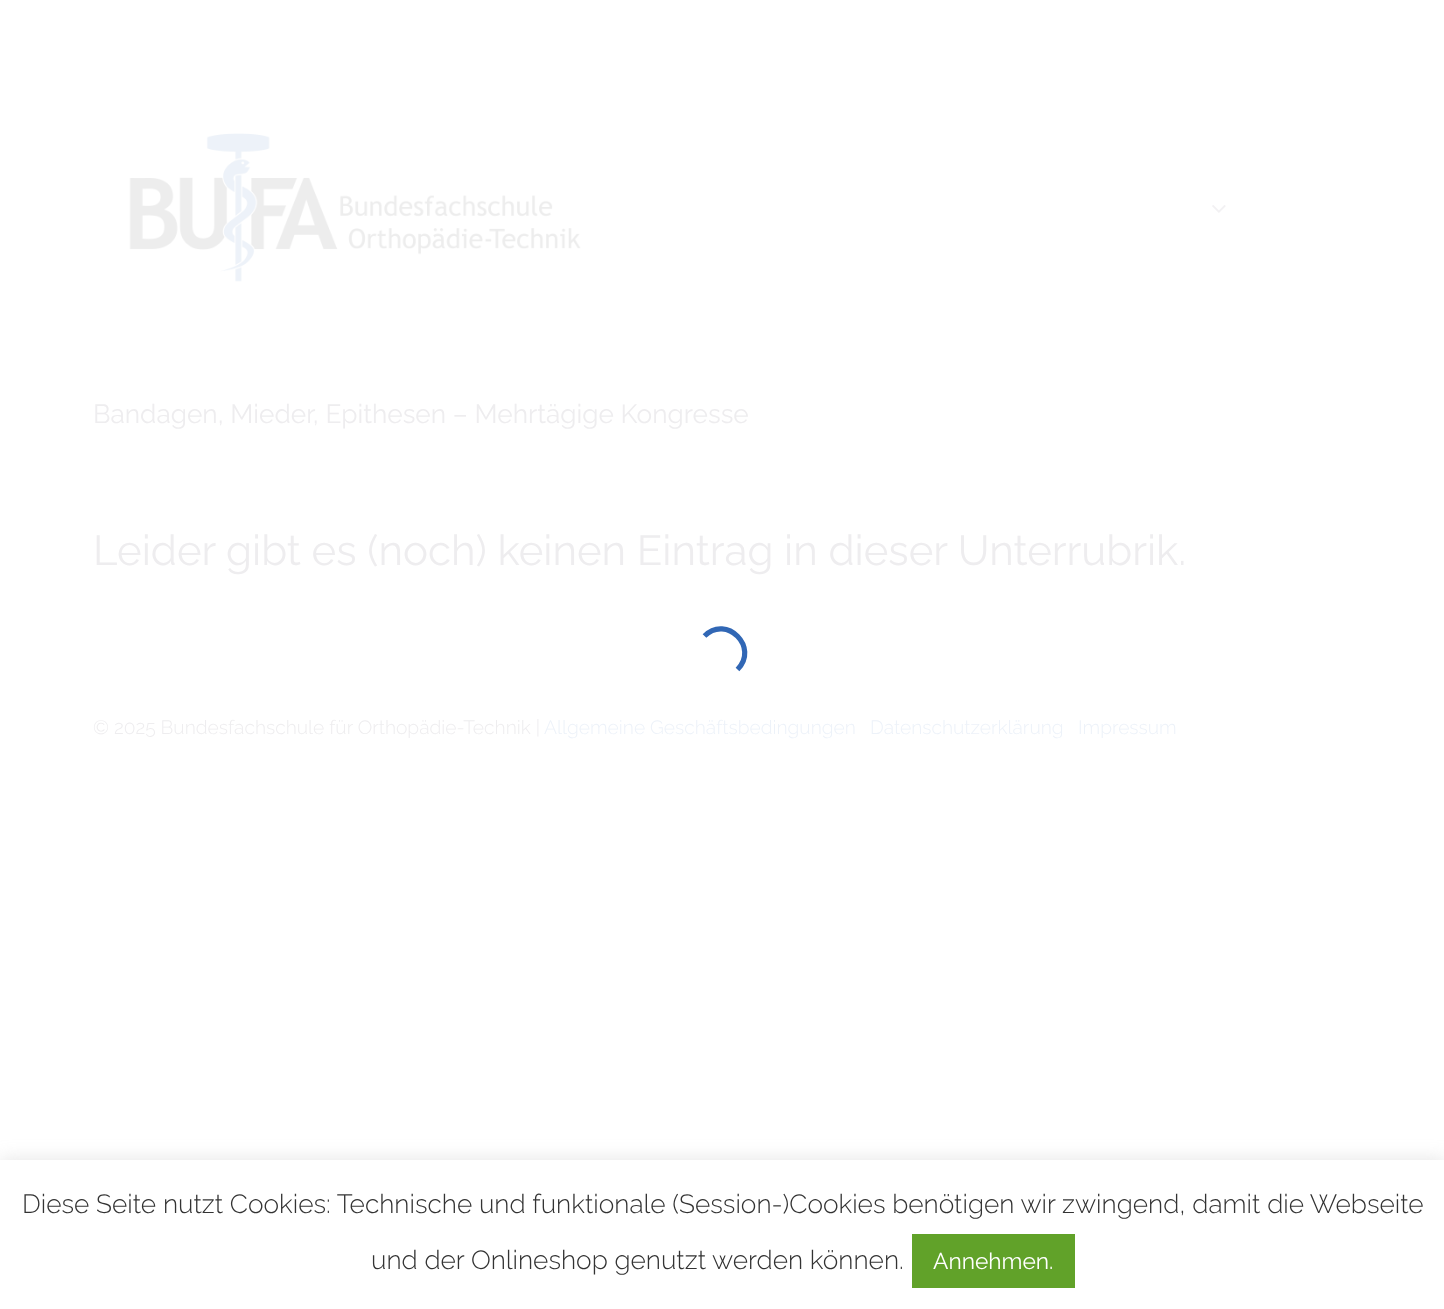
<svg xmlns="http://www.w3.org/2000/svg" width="1444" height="1309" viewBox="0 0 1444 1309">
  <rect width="100%" height="100%" fill="rgb(255,255,255)"/>
  <image x="129" y="133" width="452" height="149" href="pic1.png"/>
  <image x="1212" y="205" width="14" height="8" href="pic2.png"/>
  <text x="93" y="423" font-family="'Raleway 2'" font-size="26.25" font-weight="100" fill="rgb(238,237,239)">Bandagen, Mieder, Epithesen – Mehrtägige Kongresse</text>
  <text x="93" y="565" font-family="'Raleway 2'" font-size="42" font-weight="100" fill="rgb(238,237,239)">Leider gibt es (noch) keinen Eintrag in dieser Unterrubrik.</text>
  <text x="93" y="734" font-family="Raleway" font-size="19.25" font-weight="100" fill="rgb(238,237,239)">© 2025 Bundesfachschule für Orthopädie-Technik |</text>
  <g font-family="Raleway" font-size="19.25" font-weight="100" fill="rgb(237,242,249)">
    <text x="544" y="734">Allgemeine Geschäftsbedingungen</text>
    <text x="870" y="734">Datenschutzerklärung</text>
    <text x="1078" y="734">Impressum</text>
  </g>
  <path d="M704.5 636C726.5 614 759.5 647.5 737.5 669.5" fill="none" stroke="rgb(49,103,181)" stroke-width="5.2"/>
  <rect x="0" y="1159" width="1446" height="148" fill="rgba(172,171,171,0.3)" filter="blur(9px)"/>
  <rect x="0" y="1160" width="1444" height="149" fill="rgb(255,255,255)"/>
  <g font-family="Raleway" font-size="26.25" font-weight="100" fill="rgb(51,51,51)">
    <text x="22" y="1213">Diese Seite nutzt Cookies: Technische und funktionale (Session-)Cookies benötigen wir zwingend, damit die Webseite</text>
    <text x="371" y="1269">und der Onlineshop genutzt werden können.</text>
  </g>
  <rect x="912" y="1234" width="163" height="54" fill="rgb(97,162,41)"/>
  <text x="933" y="1269" font-family="'Raleway 2'" font-size="22.75" font-weight="100" fill="rgb(255,255,255)">Annehmen.</text>
</svg>
